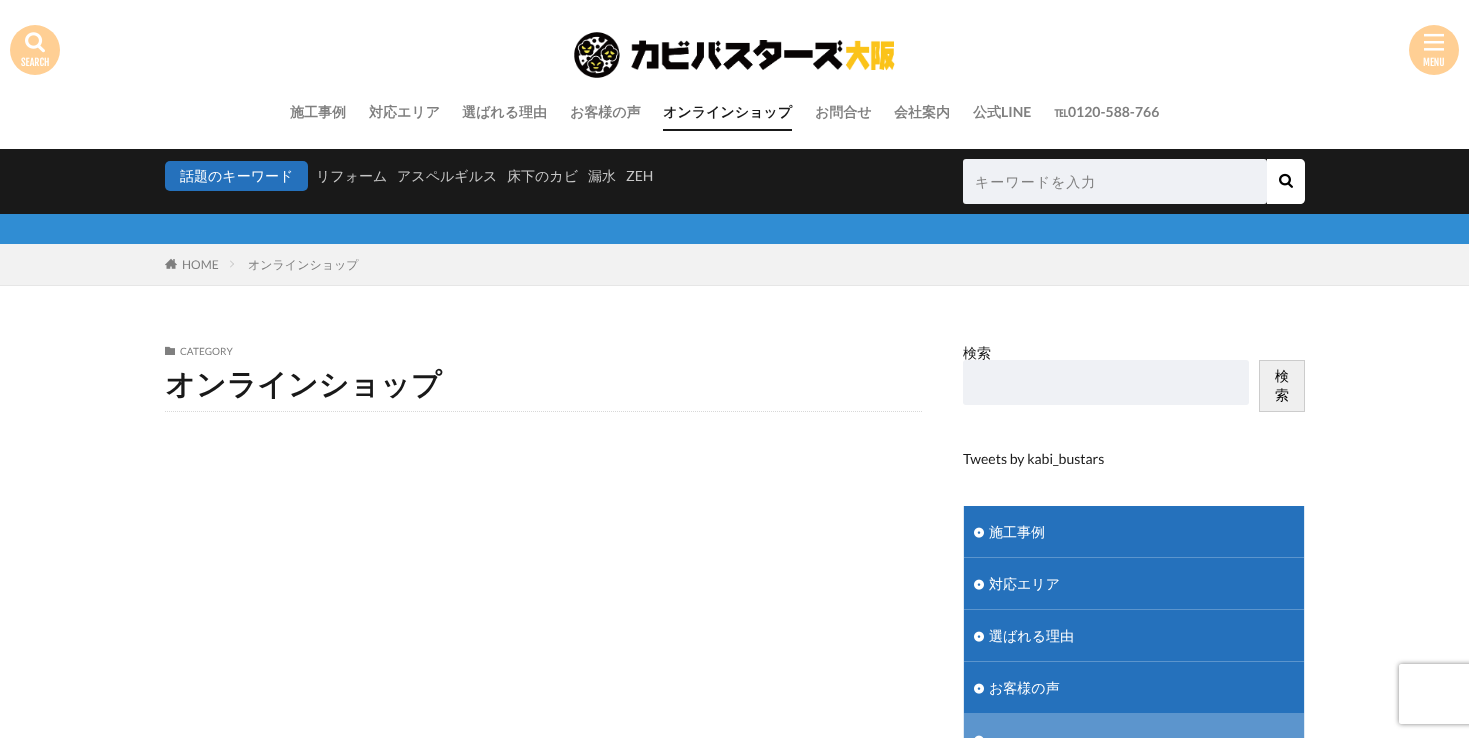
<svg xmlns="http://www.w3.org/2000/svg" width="1469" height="738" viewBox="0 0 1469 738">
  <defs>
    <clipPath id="clip1"><path d="M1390 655H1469V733H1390ZM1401 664H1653C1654 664 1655 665 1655 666V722C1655 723 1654 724 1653 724H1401C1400 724 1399 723 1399 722V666C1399 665 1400 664 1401 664Z" clip-rule="evenodd"/></clipPath>
  </defs>
  <rect width="100%" height="100%" fill="rgb(255,255,255)"/>
  <circle cx="35" cy="50" r="25" fill="rgb(255,207,148)"/>
  <image x="25" y="32" width="20" height="21" href="pic1.png"/>
  <text x="21" y="66" font-family="Fjalla One" font-size="10" fill="rgb(255,255,255)">SEARCH</text>
  <image x="574" y="32" width="321" height="46" href="pic2.png"/>
  <circle cx="1434" cy="50" r="25" fill="rgb(255,207,148)"/>
  <image x="1424" y="33" width="20" height="18" href="pic3.png"/>
  <text x="1423" y="66" font-family="Fjalla One" font-size="10" fill="rgb(255,255,255)">MENU</text>
  <g font-family="WenQuanYi Zen Hei" font-size="14" font-weight="bold" fill="rgb(127,127,127)">
    <text x="290" y="117">施工事例</text>
    <text x="369" y="117">対応エリア</text>
    <text x="462" y="117">選ばれる理由</text>
    <text x="570" y="117">お客様の声</text>
  </g>
  <rect x="663" y="129" width="129" height="2" fill="rgb(26,26,26)"/>
  <text x="663" y="117" font-family="WenQuanYi Zen Hei" font-size="14" font-weight="bold" fill="rgb(25,25,25)">オンラインショップ</text>
  <g font-family="WenQuanYi Zen Hei" font-size="14" font-weight="bold" fill="rgb(127,127,127)">
    <text x="815" y="117">お問合せ</text>
    <text x="894" y="117">会社案内</text>
    <text x="973" y="117">公式</text>
  </g>
  <text x="1001" y="117" font-family="Lato" font-size="14" font-weight="bold" fill="rgb(127,127,127)">LINE</text>
  <text x="1054" y="117" font-family="WenQuanYi Zen Hei" font-size="14" font-weight="bold" fill="rgb(127,127,127)">℡</text>
  <text x="1068" y="117" font-family="Lato" font-size="14" font-weight="bold" fill="rgb(127,127,127)">0120-588-766</text>
  <rect x="0" y="149" width="1469" height="65" fill="rgb(25,25,25)"/>
  <rect x="165" y="161" width="143" height="30" rx="5" fill="rgb(37,113,188)"/>
  <text x="180" y="181" font-family="WenQuanYi Zen Hei" font-size="14" font-weight="500" fill="rgb(255,255,255)">話題のキーワード</text>
  <g font-family="WenQuanYi Zen Hei" font-size="14" font-weight="500" fill="rgb(198,198,198)">
    <text x="316" y="181">リフォーム</text>
    <text x="397" y="181">アスペルギルス</text>
    <text x="507" y="181">床下のカビ</text>
    <text x="588" y="181">漏水</text>
  </g>
  <text x="626" y="181" font-family="Lato" font-size="14" fill="rgb(198,198,198)">ZEH</text>
  <rect x="963" y="159" width="304" height="45" rx="3" fill="rgb(239,241,245)"/>
  <text x="975" y="187" font-family="WenQuanYi Zen Hei" font-size="14" font-weight="500" letter-spacing="1" fill="rgb(127,127,127)">キーワードを入力</text>
  <path d="M1267 159H1300C1303 159 1305 161 1305 164V199C1305 202 1303 204 1300 204H1267Z" fill="rgb(255,255,255)"/>
  <image x="1279" y="173" width="14" height="15" href="pic4.png"/>
  <rect x="0" y="214" width="1469" height="30" fill="rgb(48,141,211)"/>
  <rect x="0" y="244" width="1469" height="41" fill="rgb(242,242,242)"/>
  <rect x="0" y="285" width="1469" height="1" fill="rgb(230,230,230)"/>
  <image x="165" y="258" width="12" height="11" href="pic5.png"/>
  <text x="182" y="269" font-family="Lato" font-size="12" fill="rgb(127,127,127)">HOME</text>
  <path d="M230.5 260.5L234 264L233.5 264.5L230 261Z" fill="rgb(191,191,191)"/>
  <path d="M233.5 263.5L234 264L230.5 267.5L230 267Z" fill="rgb(191,191,191)"/>
  <text x="248" y="269" font-family="WenQuanYi Zen Hei" font-size="12" font-weight="500" fill="rgb(127,127,127)">オンラインショップ</text>
  <image x="165" y="346" width="10" height="9" href="pic6.png"/>
  <text x="180" y="355" font-family="Lato" font-size="10" fill="rgb(127,127,127)">CATEGORY</text>
  <path d="M165 411.5H923" fill="none" stroke="rgb(216,216,216)" stroke-dasharray="1 1"/>
  <text x="165" y="395" font-family="WenQuanYi Zen Hei" font-size="30" font-weight="bold" fill="rgb(25,25,25)">オンラインショップ</text>
  <text x="963" y="358" font-family="WenQuanYi Zen Hei" font-size="14" font-weight="500" fill="rgb(25,25,25)">検索</text>
  <rect x="963" y="360" width="286" height="45" rx="3" fill="rgb(239,241,245)"/>
  <rect x="1259.5" y="360.5" width="45" height="51" fill="rgb(239,239,239)" stroke="rgb(204,204,204)"/>
  <g font-family="WenQuanYi Zen Hei" font-size="14" font-weight="500" fill="rgb(0,0,0)">
    <text>
      <tspan x="1275" y="381">検</tspan>
      <tspan x="1275" y="400">索</tspan>
    </text>
  </g>
  <text x="963" y="464" font-family="Lato" font-size="14" fill="rgb(25,25,25)">Tweets by kabi_bustars</text>
  <path d="M1305 506V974L1304 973V506Z" fill="rgb(222,234,245)"/>
  <path d="M963 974V506H964V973Z" fill="rgb(222,234,245)"/>
  <rect x="964" y="506" width="340" height="51" fill="rgb(37,113,188)"/>
  <image x="974" y="527" width="10" height="11" href="pic7.png"/>
  <text x="989" y="537" font-family="WenQuanYi Zen Hei" font-size="14" font-weight="500" fill="rgb(255,255,255)">施工事例</text>
  <rect x="964" y="557" width="340" height="1" fill="rgb(92,149,205)"/>
  <rect x="964" y="558" width="340" height="51" fill="rgb(37,113,188)"/>
  <image x="974" y="579" width="10" height="11" href="pic7.png"/>
  <text x="989" y="589" font-family="WenQuanYi Zen Hei" font-size="14" font-weight="500" fill="rgb(255,255,255)">対応エリア</text>
  <rect x="964" y="609" width="340" height="1" fill="rgb(92,149,205)"/>
  <rect x="964" y="610" width="340" height="51" fill="rgb(37,113,188)"/>
  <image x="974" y="631" width="10" height="11" href="pic7.png"/>
  <text x="989" y="641" font-family="WenQuanYi Zen Hei" font-size="14" font-weight="500" fill="rgb(255,255,255)">選ばれる理由</text>
  <rect x="964" y="661" width="340" height="1" fill="rgb(92,149,205)"/>
  <rect x="964" y="662" width="340" height="51" fill="rgb(37,113,188)"/>
  <image x="974" y="683" width="10" height="11" href="pic7.png"/>
  <text x="989" y="693" font-family="WenQuanYi Zen Hei" font-size="14" font-weight="500" fill="rgb(255,255,255)">お客様の声</text>
  <rect x="964" y="713" width="340" height="25" fill="rgb(92,149,205)"/>
  <image x="974" y="735" width="10" height="3" href="pic8.png"/>
  <g clip-path="url(#clip1)">
    <rect x="1399" y="664" width="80" height="60" rx="2" fill="rgb(128,128,128)" filter="blur(2.5px)"/>
  </g>
</svg>
